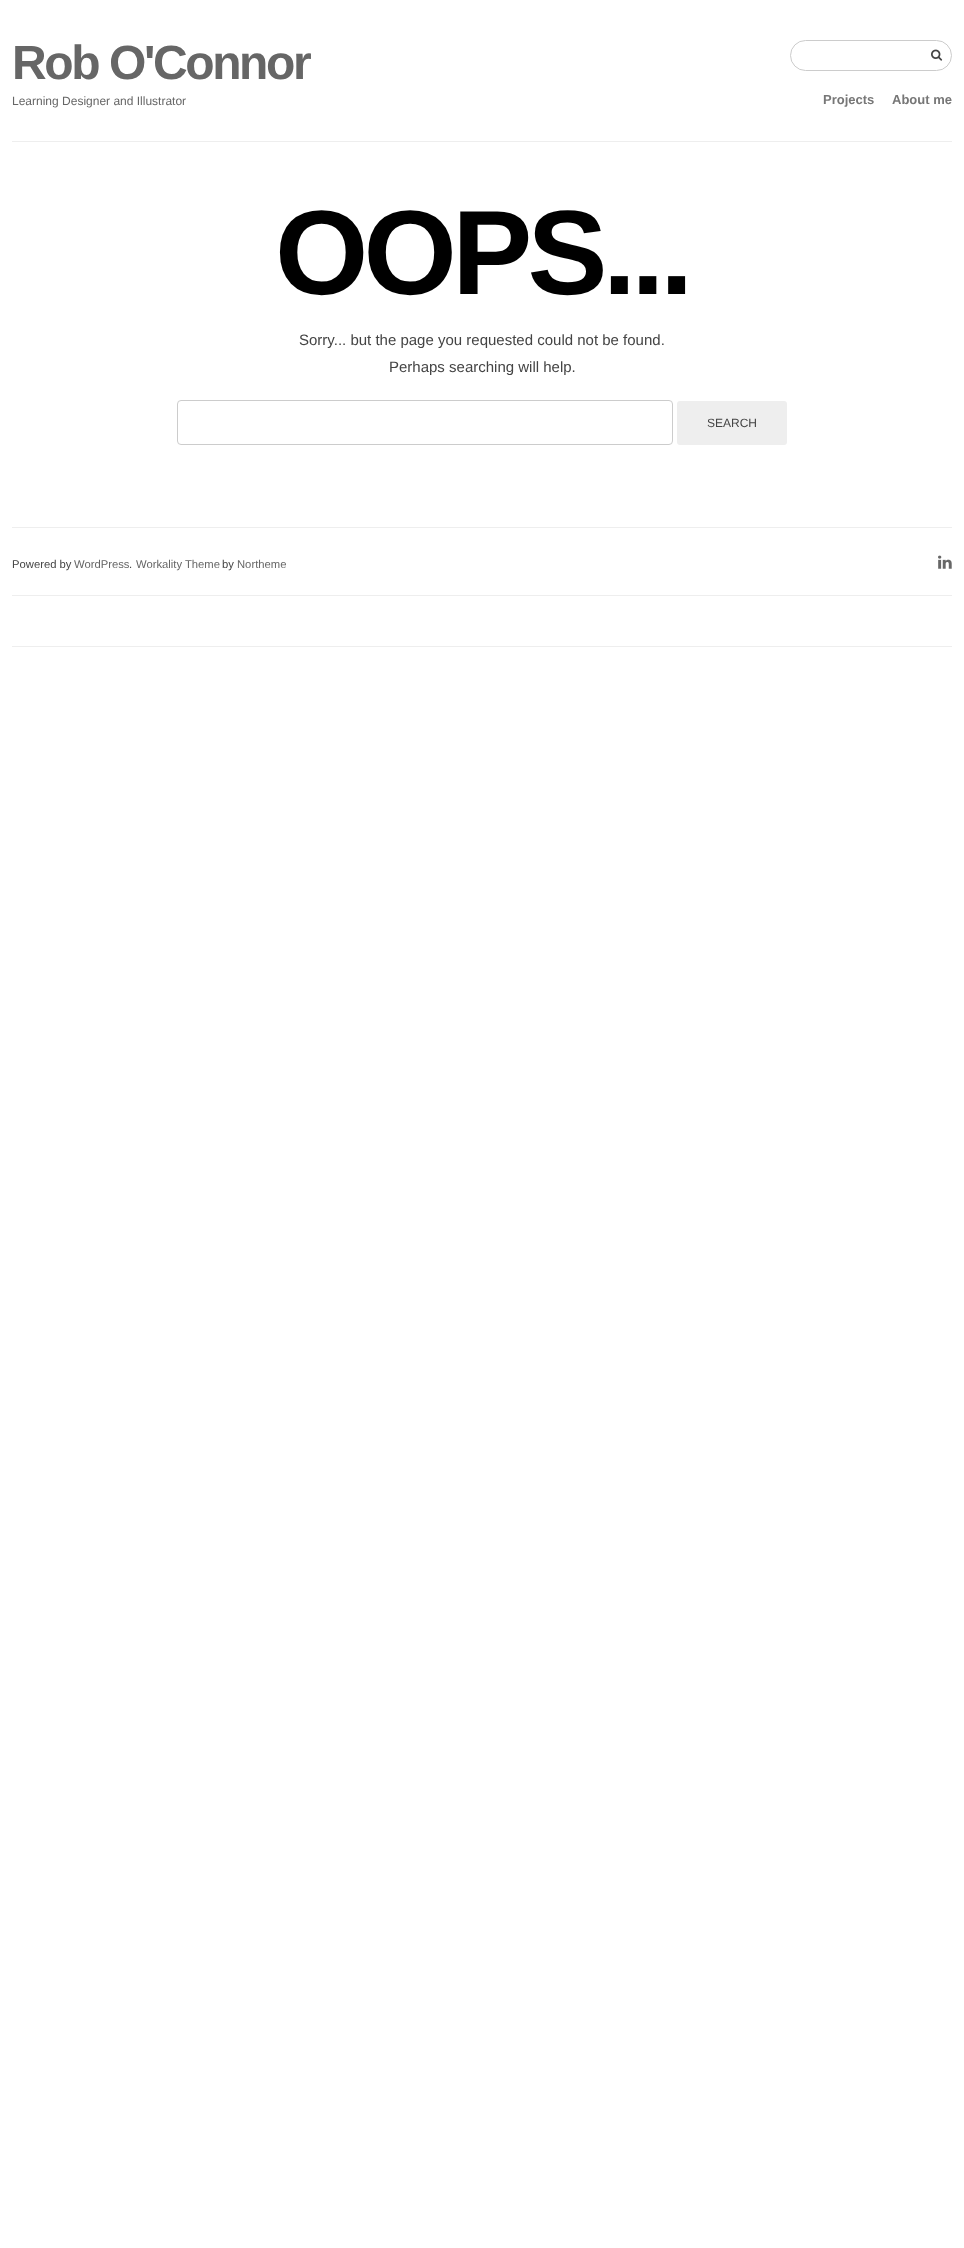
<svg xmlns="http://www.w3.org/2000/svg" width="964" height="2248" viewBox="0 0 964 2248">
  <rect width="100%" height="100%" fill="rgb(255,255,255)"/>
  <text x="12" y="79" font-family="Liberation Sans" font-size="48" font-weight="bold" letter-spacing="-2.4" fill="rgb(102,102,102)">Rob O'Connor</text>
  <rect x="790.5" y="40.5" width="161" height="30" rx="15" fill="none" stroke="rgb(204,204,204)"/>
  <image x="931" y="49" width="12" height="12" href="pic1.png"/>
  <text x="12" y="105" font-family="Liberation Sans" font-size="12" fill="rgb(102,102,102)">Learning Designer and Illustrator</text>
  <g font-family="Liberation Sans" font-size="13" font-weight="bold" fill="rgb(119,119,119)">
    <text x="823" y="104">Projects</text>
    <text x="892" y="104">About me</text>
  </g>
  <rect x="12" y="141" width="940" height="1" fill="rgb(238,238,238)"/>
  <text x="275" y="294" font-family="Liberation Sans" font-size="120" font-weight="bold" letter-spacing="-4.75" fill="rgb(0,0,0)">OOPS...</text>
  <g font-family="Liberation Sans" font-size="15" fill="rgb(68,68,68)">
    <text x="299" y="345">Sorry... but the page you requested could not be found.</text>
    <text x="389" y="372">Perhaps searching will help.</text>
  </g>
  <rect x="177.5" y="400.5" width="495" height="44" rx="3.5" fill="none" stroke="rgb(204,204,204)"/>
  <rect x="677" y="401" width="110" height="44" rx="3" fill="rgb(238,238,238)"/>
  <text x="707" y="427" font-family="Liberation Sans" font-size="12" fill="rgb(68,68,68)">SEARCH</text>
  <rect x="12" y="527" width="940" height="1" fill="rgb(238,238,238)"/>
  <text x="12" y="568" font-family="Liberation Sans" font-size="11.25" fill="rgb(68,68,68)">Powered by</text>
  <text x="74" y="568" font-family="Liberation Sans" font-size="11.25" fill="rgb(102,102,102)">WordPress</text>
  <text x="129" y="568" font-family="Liberation Sans" font-size="11.25" fill="rgb(68,68,68)">.</text>
  <text x="136" y="568" font-family="Liberation Sans" font-size="11.25" fill="rgb(102,102,102)">Workality Theme</text>
  <text x="222" y="568" font-family="Liberation Sans" font-size="11.25" fill="rgb(68,68,68)">by</text>
  <text x="237" y="568" font-family="Liberation Sans" font-size="11.25" fill="rgb(102,102,102)">Northeme</text>
  <image x="938" y="555" width="14" height="14" href="pic2.png"/>
  <rect x="12" y="595" width="940" height="1" fill="rgb(238,238,238)"/>
  <rect x="12" y="646" width="940" height="1" fill="rgb(238,238,238)"/>
</svg>
